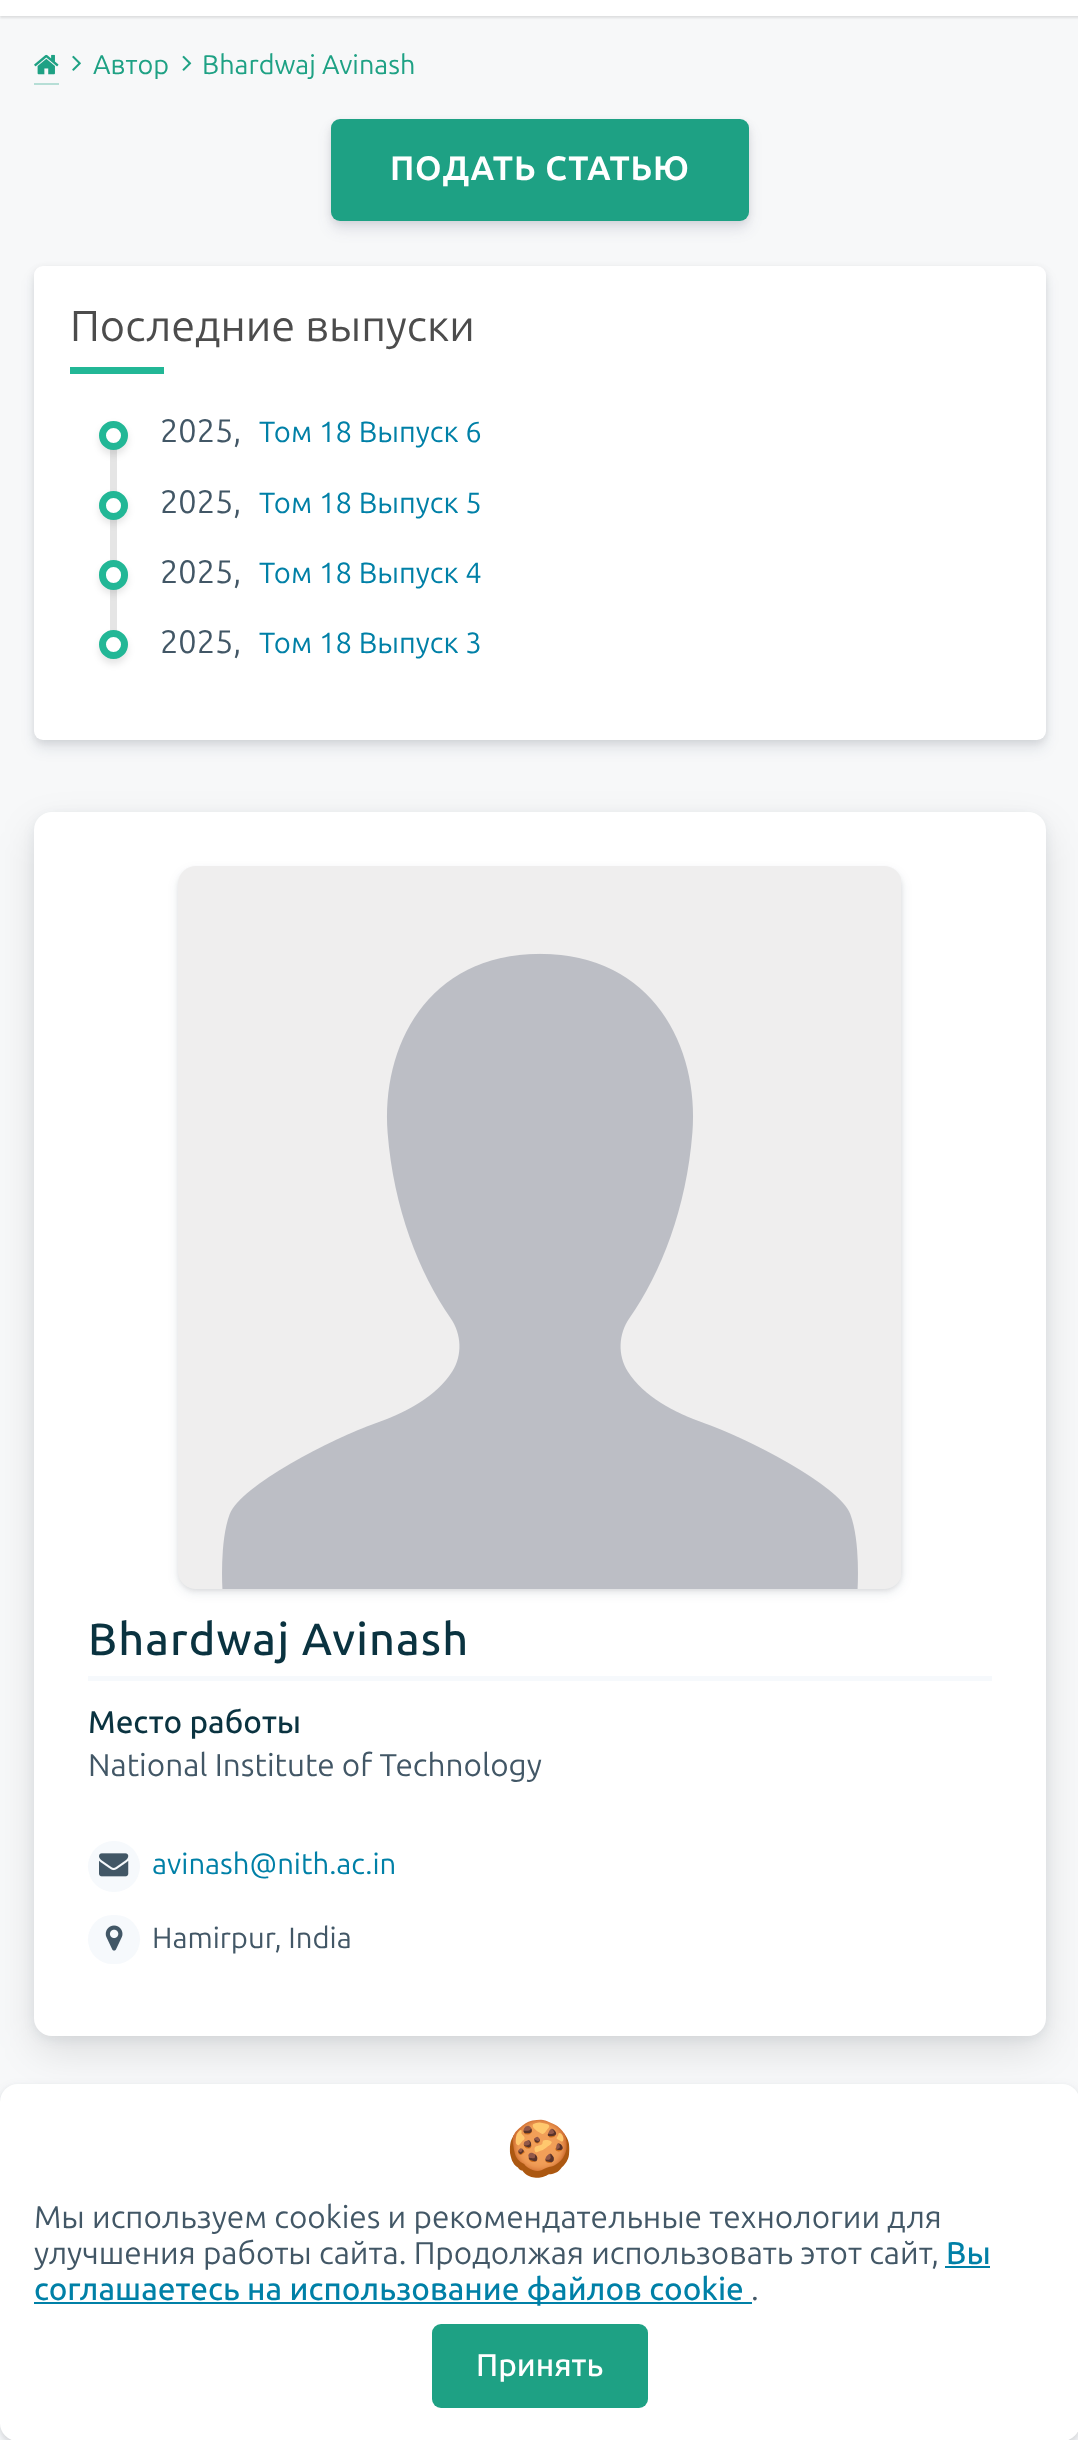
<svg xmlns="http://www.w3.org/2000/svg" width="1078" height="2440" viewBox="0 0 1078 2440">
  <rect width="100%" height="100%" fill="rgb(247,248,249)"/>
  <rect x="0" y="-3" width="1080" height="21" fill="rgba(0,0,0,0.1)" filter="blur(1px)"/>
  <rect x="0" y="0" width="1078" height="16" fill="rgb(255,255,255)"/>
  <rect x="34" y="83" width="25" height="2" fill="rgb(182,222,214)"/>
  <image x="34" y="54" width="25" height="21" href="pic1.png"/>
  <image x="72" y="55" width="9" height="16" href="pic2.png"/>
  <text x="93" y="74" font-family="Ubuntu" font-size="27" fill="rgb(30,161,132)">Автор</text>
  <image x="182" y="55" width="10" height="16" href="pic3.png"/>
  <text x="202" y="74" font-family="Ubuntu" font-size="27" fill="rgb(30,161,132)">Bhardwaj Avinash</text>
  <rect x="331" y="122" width="418" height="101" rx="9" fill="rgba(0,0,0,0.08)" filter="blur(3.5px)"/>
  <rect x="331" y="128" width="418" height="102" rx="9" fill="rgba(50,50,93,0.11)" filter="blur(7px)"/>
  <rect x="331" y="119" width="418" height="102" rx="9" fill="rgb(30,161,132)"/>
  <text x="390" y="180" font-family="Ubuntu" font-size="33.75" font-weight="bold" letter-spacing="0.8" fill="rgb(255,255,255)">ПОДАТЬ СТАТЬЮ</text>
  <rect x="34" y="268" width="1012" height="475" rx="9" fill="rgba(0,0,0,0.08)" filter="blur(3.5px)"/>
  <rect x="34" y="275" width="1012" height="474" rx="9" fill="rgba(10,37,64,0.09)" filter="blur(7px)"/>
  <rect x="34" y="266" width="1012" height="474" rx="9" fill="rgb(255,255,255)"/>
  <text x="70" y="341" font-family="Ubuntu" font-size="43.25" fill="rgb(76,76,76)">Последние выпуски</text>
  <rect x="70" y="367" width="94" height="7" fill="rgb(34,183,150)"/>
  <rect x="110" y="449" width="7" height="210" fill="rgb(229,229,229)"/>
  <rect x="99" y="425" width="29" height="30" rx="14.5" fill="rgba(0,0,0,0.1)" filter="blur(3.5px)"/>
  <circle cx="113.5" cy="435.5" r="11" fill="rgb(255,255,255)" stroke="rgb(34,183,150)" stroke-width="7"/>
  <text x="160" y="442" font-family="Ubuntu" font-size="32.5" fill="rgb(66,87,102)">2025,</text>
  <text x="259" y="442" font-family="Ubuntu" font-size="29.25" fill="rgb(0,128,167)">Том 18 Выпуск 6</text>
  <rect x="99" y="495" width="29" height="29" rx="14.5" fill="rgba(0,0,0,0.1)" filter="blur(3.5px)"/>
  <circle cx="113.5" cy="505.5" r="11" fill="rgb(255,255,255)" stroke="rgb(34,183,150)" stroke-width="7"/>
  <text x="160" y="513" font-family="Ubuntu" font-size="32.5" fill="rgb(66,87,102)">2025,</text>
  <text x="259" y="513" font-family="Ubuntu" font-size="29.25" fill="rgb(0,128,167)">Том 18 Выпуск 5</text>
  <rect x="99" y="565" width="29" height="29" rx="14.5" fill="rgba(0,0,0,0.1)" filter="blur(3.5px)"/>
  <rect x="102.5" y="563.5" width="22" height="23" rx="11" fill="rgb(255,255,255)" stroke="rgb(34,183,150)" stroke-width="7"/>
  <text x="160" y="583" font-family="Ubuntu" font-size="32.5" fill="rgb(66,87,102)">2025,</text>
  <text x="259" y="583" font-family="Ubuntu" font-size="29.25" fill="rgb(0,128,167)">Том 18 Выпуск 4</text>
  <rect x="99" y="635" width="29" height="29" rx="14.5" fill="rgba(0,0,0,0.1)" filter="blur(3.5px)"/>
  <circle cx="113.5" cy="644.5" r="11" fill="rgb(255,255,255)" stroke="rgb(34,183,150)" stroke-width="7"/>
  <text x="160" y="653" font-family="Ubuntu" font-size="32.5" fill="rgb(66,87,102)">2025,</text>
  <text x="259" y="653" font-family="Ubuntu" font-size="29.25" fill="rgb(0,128,167)">Том 18 Выпуск 3</text>
  <rect x="34" y="828" width="1012" height="1224" rx="18" fill="rgba(0,0,0,0.1)" filter="blur(19px)"/>
  <rect x="34" y="815" width="1012" height="1224" rx="18" fill="rgba(10,37,64,0.07)" filter="blur(5.5px)"/>
  <rect x="34" y="812" width="1012" height="1224" rx="18" fill="rgb(255,255,255)"/>
  <rect x="178" y="869" width="724" height="722" rx="18" fill="rgba(0,0,0,0.07)" filter="blur(2px)"/>
  <rect x="178" y="871" width="724" height="722" rx="18" fill="rgba(10,37,64,0.09)" filter="blur(5.5px)"/>
  <image x="178" y="866" width="723" height="723" href="pic4.png"/>
  <rect x="88" y="1676" width="904" height="5" fill="rgb(246,249,252)"/>
  <text x="88" y="1655" font-family="Ubuntu" font-size="45" font-weight="500" letter-spacing="1.1" fill="rgb(10,51,64)">Bhardwaj Avinash</text>
  <text x="88" y="1733" font-family="Ubuntu" font-size="31.5" font-weight="500" fill="rgb(10,51,64)">Место работы</text>
  <text x="88" y="1776" font-family="Ubuntu" font-size="31.5" fill="rgb(66,87,102)">National Institute of Technology</text>
  <rect x="88" y="1841" width="52" height="51" rx="25.5" fill="rgb(246,249,252)"/>
  <image x="99" y="1853" width="30" height="24" href="pic5.png"/>
  <text x="152" y="1874" font-family="Ubuntu" font-size="29.25" fill="rgb(0,128,167)">avinash@nith.ac.in</text>
  <rect x="88" y="1915" width="52" height="49" rx="24.5" fill="rgb(246,249,252)"/>
  <image x="105" y="1925" width="18" height="26" href="pic6.png"/>
  <text x="152" y="1948" font-family="Ubuntu" font-size="29.25" fill="rgb(66,87,102)">Hamirpur, India</text>
  <rect x="0" y="2086" width="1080" height="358" rx="18" fill="rgba(0,0,0,0.07)" filter="blur(2px)"/>
  <rect x="0" y="2088" width="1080" height="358" rx="18" fill="rgba(10,37,64,0.09)" filter="blur(5.5px)"/>
  <rect x="0" y="2084" width="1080" height="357" rx="18" fill="rgb(255,255,255)"/>
  <text x="506" y="2167" font-family="Noto Color Emoji" font-size="54" fill="rgb(66,87,102)">🍪</text>
  <g font-family="Ubuntu" font-size="31.5" fill="rgb(66,87,102)">
    <text>
      <tspan x="34" y="2228">Мы используем cookies и рекомендательные технологии для</tspan>
      <tspan x="34" y="2264">улучшения работы сайта. Продолжая использовать этот сайт,</tspan>
    </text>
  </g>
  <text x="946" y="2264" font-family="Ubuntu" font-size="31.5" font-weight="500" fill="rgb(0,128,167)">Вы</text>
  <rect x="945" y="2266" width="45" height="2" fill="rgb(0,128,167)"/>
  <rect x="34" y="2302" width="718" height="2" fill="rgb(0,128,167)"/>
  <text x="34" y="2300" font-family="Ubuntu" font-size="31.5" font-weight="500" fill="rgb(0,128,167)">соглашаетесь на использование файлов cookie</text>
  <text x="751" y="2300" font-family="Ubuntu" font-size="31.5" fill="rgb(66,87,102)">.</text>
  <rect x="432" y="2324" width="216" height="84" rx="9" fill="rgb(30,161,132)"/>
  <text x="476" y="2376" font-family="Ubuntu" font-size="31.5" font-weight="500" fill="rgb(255,255,255)">Принять</text>
</svg>
